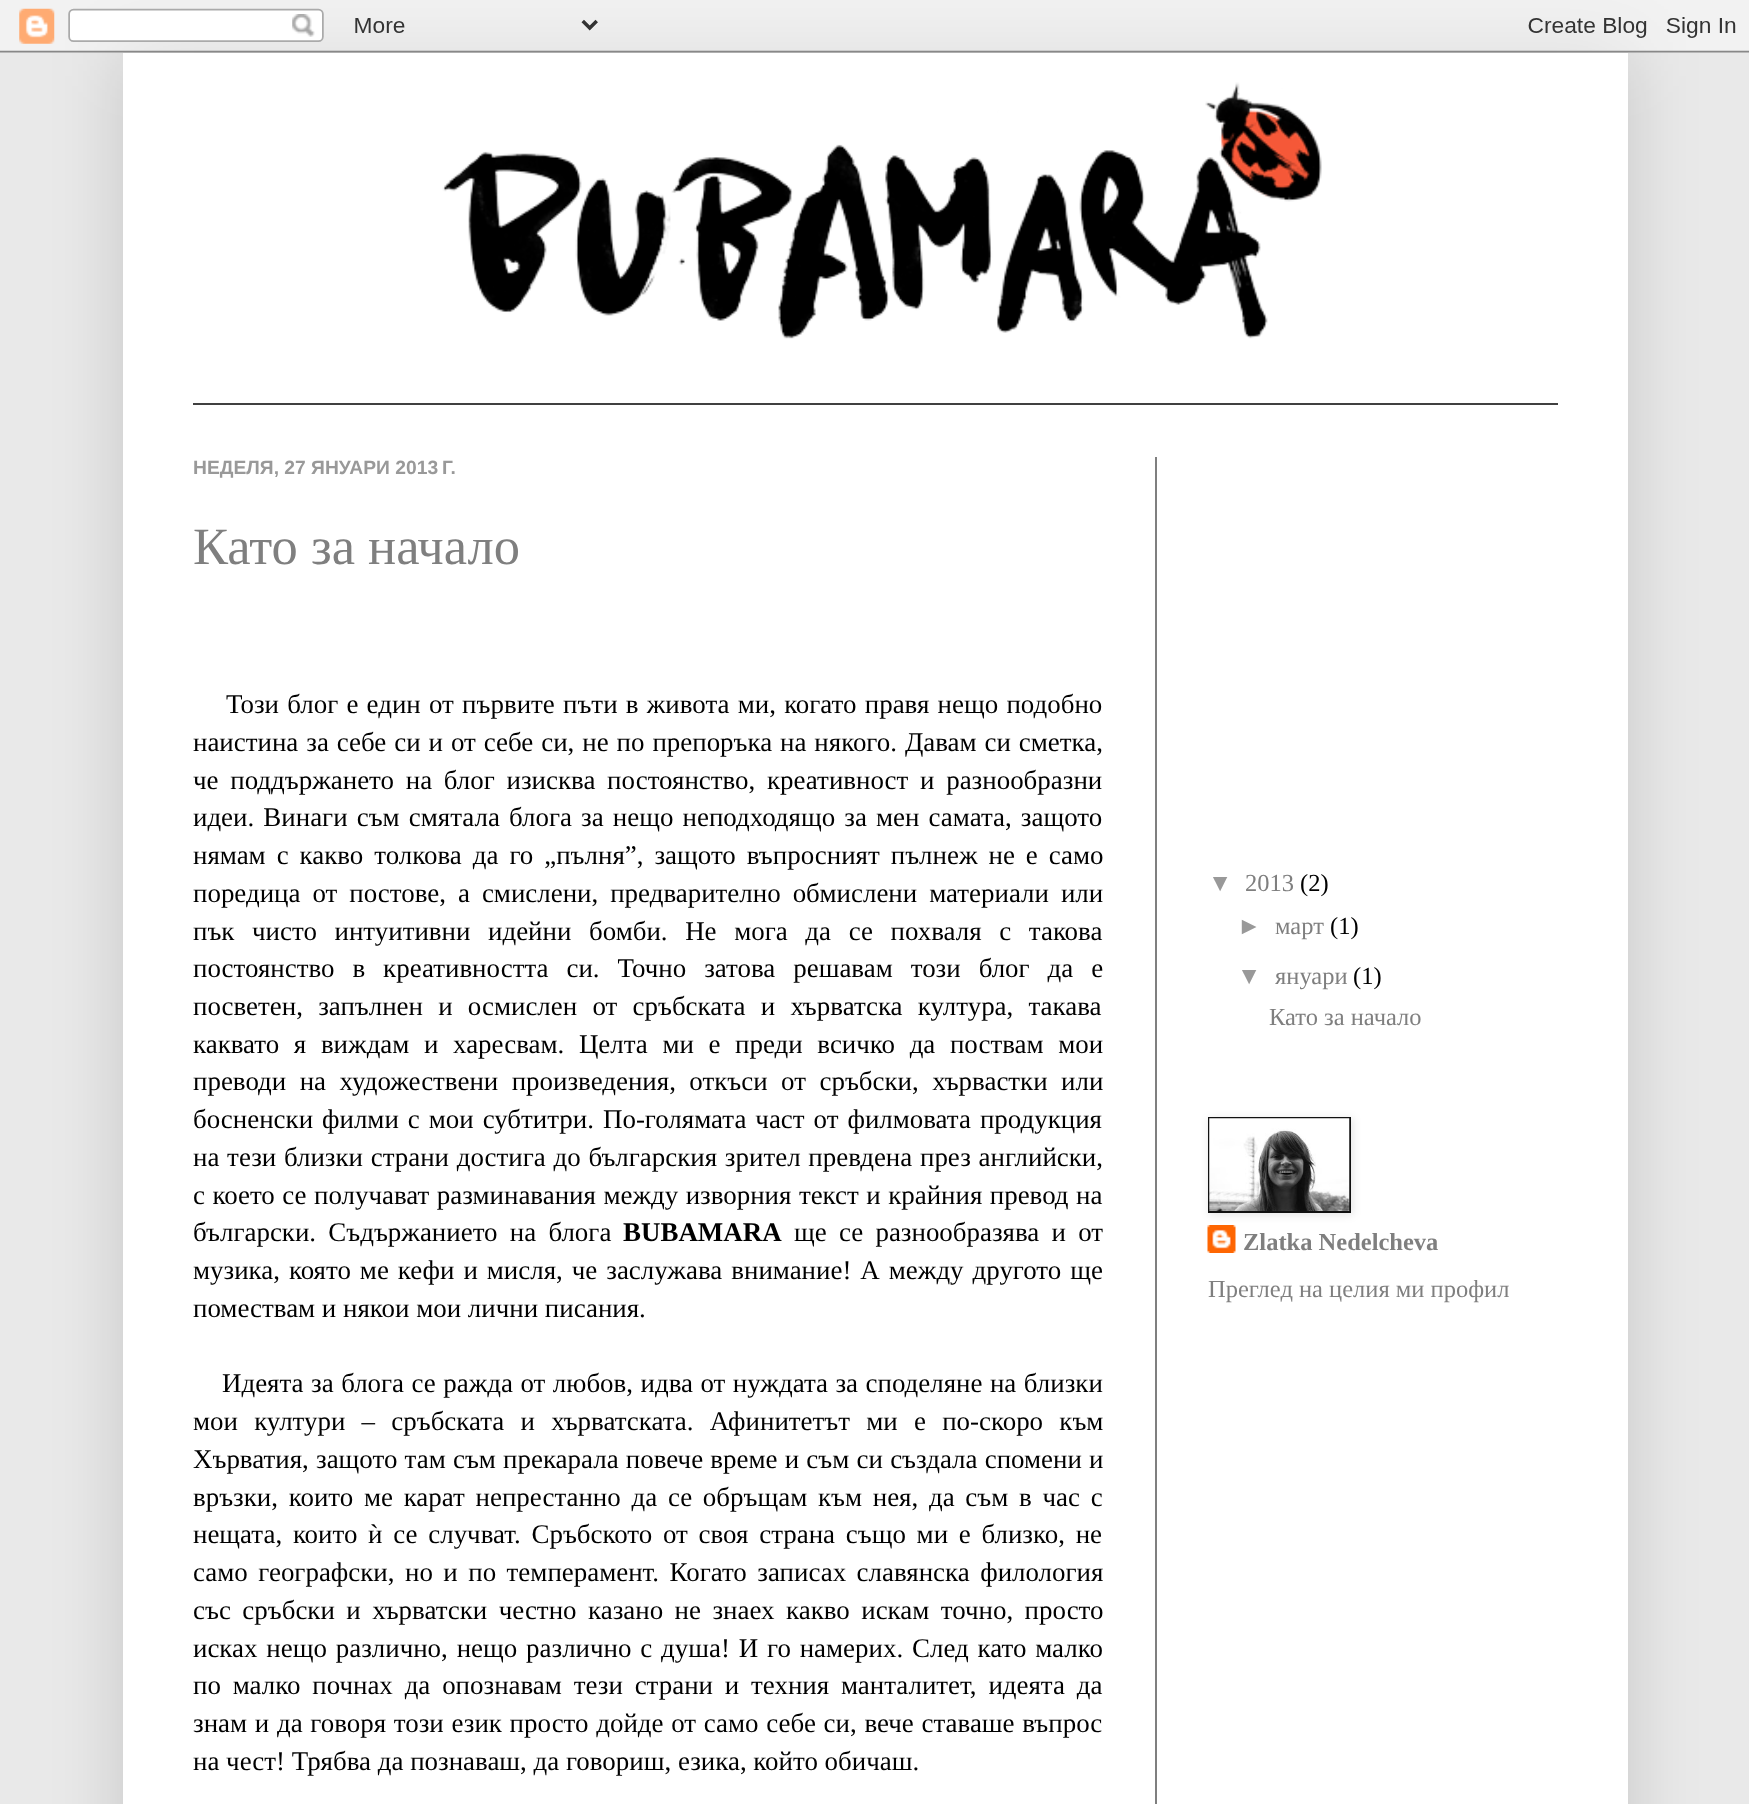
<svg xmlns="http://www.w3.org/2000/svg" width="1749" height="1804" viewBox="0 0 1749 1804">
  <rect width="100%" height="100%" fill="rgb(233,233,233)"/>
  <rect x="123" y="53" width="1505" height="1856" fill="rgba(0,0,0,0.15)" filter="blur(35px)"/>
  <image x="0" y="0" width="1749" height="53" href="pic1.png"/>
  <rect x="123" y="53" width="1505" height="1751" fill="rgb(255,255,255)"/>
  <image x="442" y="82" width="880" height="257" href="pic2.png"/>
  <rect x="193" y="403" width="1365" height="2" fill="rgb(64,64,64)"/>
  <rect x="1155" y="457" width="2" height="1347" fill="rgb(127,127,127)"/>
  <text x="193" y="474" font-family="Liberation Sans" font-size="19.25" font-weight="bold" fill="rgb(153,153,153)">НЕДЕЛЯ, 27 ЯНУАРИ 2013 Г.</text>
  <text x="193" y="564" font-family="Liberation Serif" font-size="52.5" fill="rgb(127,127,127)">Като за начало</text>
  <g font-family="Liberation Serif" font-size="26.95" fill="rgb(0,0,0)">
    <text x="226" y="713" word-spacing="1.5">Този блог е един от първите пъти в живота ми, когато правя нещо подобно</text>
    <text>
      <tspan x="193" y="751" word-spacing="1.2">наистина за себе си и от себе си, не по препоръка на някого. Давам си сметка,</tspan>
      <tspan x="193" y="789" word-spacing="5">че поддържането на блог изисква постоянство, креативност и разнообразни</tspan>
      <tspan x="193" y="826" word-spacing="2.4">идеи. Винаги съм смятала блога за нещо неподходящо за мен самата, защото</tspan>
      <tspan x="193" y="864" word-spacing="4.25">нямам с какво толкова да го „пълня”, защото въпросният пълнеж не е само</tspan>
      <tspan x="193" y="902" word-spacing="5.25">поредица от постове, а смислени, предварително обмислени материали или</tspan>
      <tspan x="193" y="940" word-spacing="10.9">пък чисто интуитивни идейни бомби. Не мога да се похваля с такова</tspan>
      <tspan x="193" y="977" word-spacing="11.25">постоянство в креативността си. Точно затова решавам този блог да е</tspan>
      <tspan x="193" y="1015" word-spacing="8.5">посветен, запълнен и осмислен от сръбската и хърватска култура, такава</tspan>
      <tspan x="193" y="1053" word-spacing="7.9">каквато я виждам и харесвам. Целта ми е преди всичко да поствам мои</tspan>
      <tspan x="193" y="1090" word-spacing="6.75">преводи на художествени произведения, откъси от сръбски, хървастки или</tspan>
      <tspan x="193" y="1128" word-spacing="2.25">босненски филми с мои субтитри. По-голямата част от филмовата продукция</tspan>
      <tspan x="193" y="1166" word-spacing="1">на тези близки страни достига до българския зрител превдена през английски,</tspan>
      <tspan x="193" y="1204" word-spacing="0.75">с което се получават разминавания между изворния текст и крайния превод на</tspan>
      <tspan x="193" y="1241" word-spacing="5.5">български. Съдържанието на блога</tspan>
    </text>
  </g>
  <text x="623" y="1241" font-family="Liberation Serif" font-size="26.95" font-weight="bold" fill="rgb(0,0,0)">BUBAMARA</text>
  <g font-family="Liberation Serif" font-size="26.95" fill="rgb(0,0,0)">
    <text x="794" y="1241" word-spacing="5.5">ще се разнообразява и от</text>
    <text>
      <tspan x="193" y="1279" word-spacing="2.25">музика, която ме кефи и мисля, че заслужава внимание! А между другото ще</tspan>
      <tspan x="193" y="1317">помествам и някои мои лични писания.</tspan>
    </text>
    <text x="222" y="1392" word-spacing="0.75">Идеята за блога се ражда от любов, идва от нуждата за споделяне на близки</text>
    <text>
      <tspan x="193" y="1430" word-spacing="9.5">мои култури – сръбската и хърватската. Афинитетът ми е по-скоро към</tspan>
      <tspan x="193" y="1468" word-spacing="0.5">Хърватия, защото там съм прекарала повече време и съм си създала спомени и</tspan>
      <tspan x="193" y="1506" word-spacing="4">връзки, които ме карат непрестанно да се обръщам към нея, да съм в час с</tspan>
      <tspan x="193" y="1543" word-spacing="4">нещата, които ѝ се случват. Сръбското от своя страна също ми е близко, не</tspan>
      <tspan x="193" y="1581" word-spacing="3.75">само географски, но и по темперамент. Когато записах славянска филология</tspan>
      <tspan x="193" y="1619" word-spacing="4.75">със сръбски и хърватски честно казано не знаех какво искам точно, просто</tspan>
      <tspan x="193" y="1657" word-spacing="2.1">исках нещо различно, нещо различно с душа! И го намерих. След като малко</tspan>
      <tspan x="193" y="1694" word-spacing="5.1">по малко почнах да опознавам тези страни и техния манталитет, идеята да</tspan>
      <tspan x="193" y="1732" word-spacing="1">знам и да говоря този език просто дойде от само себе си, вече ставаше въпрос</tspan>
      <tspan x="193" y="1770">на чест! Трябва да познаваш, да говориш, езика, който обичаш.</tspan>
    </text>
  </g>
  <text x="1208" y="891" font-family="Liberation Sans" font-size="24.5" fill="rgb(153,153,153)">▼</text>
  <text x="1245" y="891" font-family="Liberation Serif" font-size="24.5" fill="rgb(127,127,127)">2013</text>
  <text x="1300" y="891" font-family="Liberation Serif" font-size="24.5" fill="rgb(0,0,0)">(2)</text>
  <text x="1237" y="934" font-family="Liberation Sans" font-size="24.5" fill="rgb(153,153,153)">►</text>
  <text x="1275" y="934" font-family="Liberation Serif" font-size="24.5" fill="rgb(127,127,127)">март</text>
  <text x="1330" y="934" font-family="Liberation Serif" font-size="24.5" fill="rgb(0,0,0)">(1)</text>
  <text x="1237" y="984" font-family="Liberation Sans" font-size="24.5" fill="rgb(153,153,153)">▼</text>
  <text x="1275" y="984" font-family="Liberation Serif" font-size="24.5" fill="rgb(127,127,127)">януари</text>
  <text x="1353" y="984" font-family="Liberation Serif" font-size="24.5" fill="rgb(0,0,0)">(1)</text>
  <text x="1269" y="1025" font-family="Liberation Serif" font-size="24.5" fill="rgb(127,127,127)">Като за начало</text>
  <image x="1207" y="1225" width="29" height="28" href="pic4.png"/>
  <rect x="1209" y="1118" width="144" height="97" fill="rgba(0,0,0,0.1)" filter="blur(4.5px)"/>
  <rect x="1209" y="1118" width="141" height="94" fill="none" stroke="rgb(17,17,17)" stroke-width="2"/>
  <image x="1209" y="1118" width="141" height="93" href="pic3.png"/>
  <text x="1243" y="1250" font-family="Liberation Serif" font-size="24.5" font-weight="bold" fill="rgb(127,127,127)">Zlatka Nedelcheva</text>
  <text x="1208" y="1297" font-family="Liberation Serif" font-size="24.5" fill="rgb(127,127,127)">Преглед на целия ми профил</text>
</svg>
